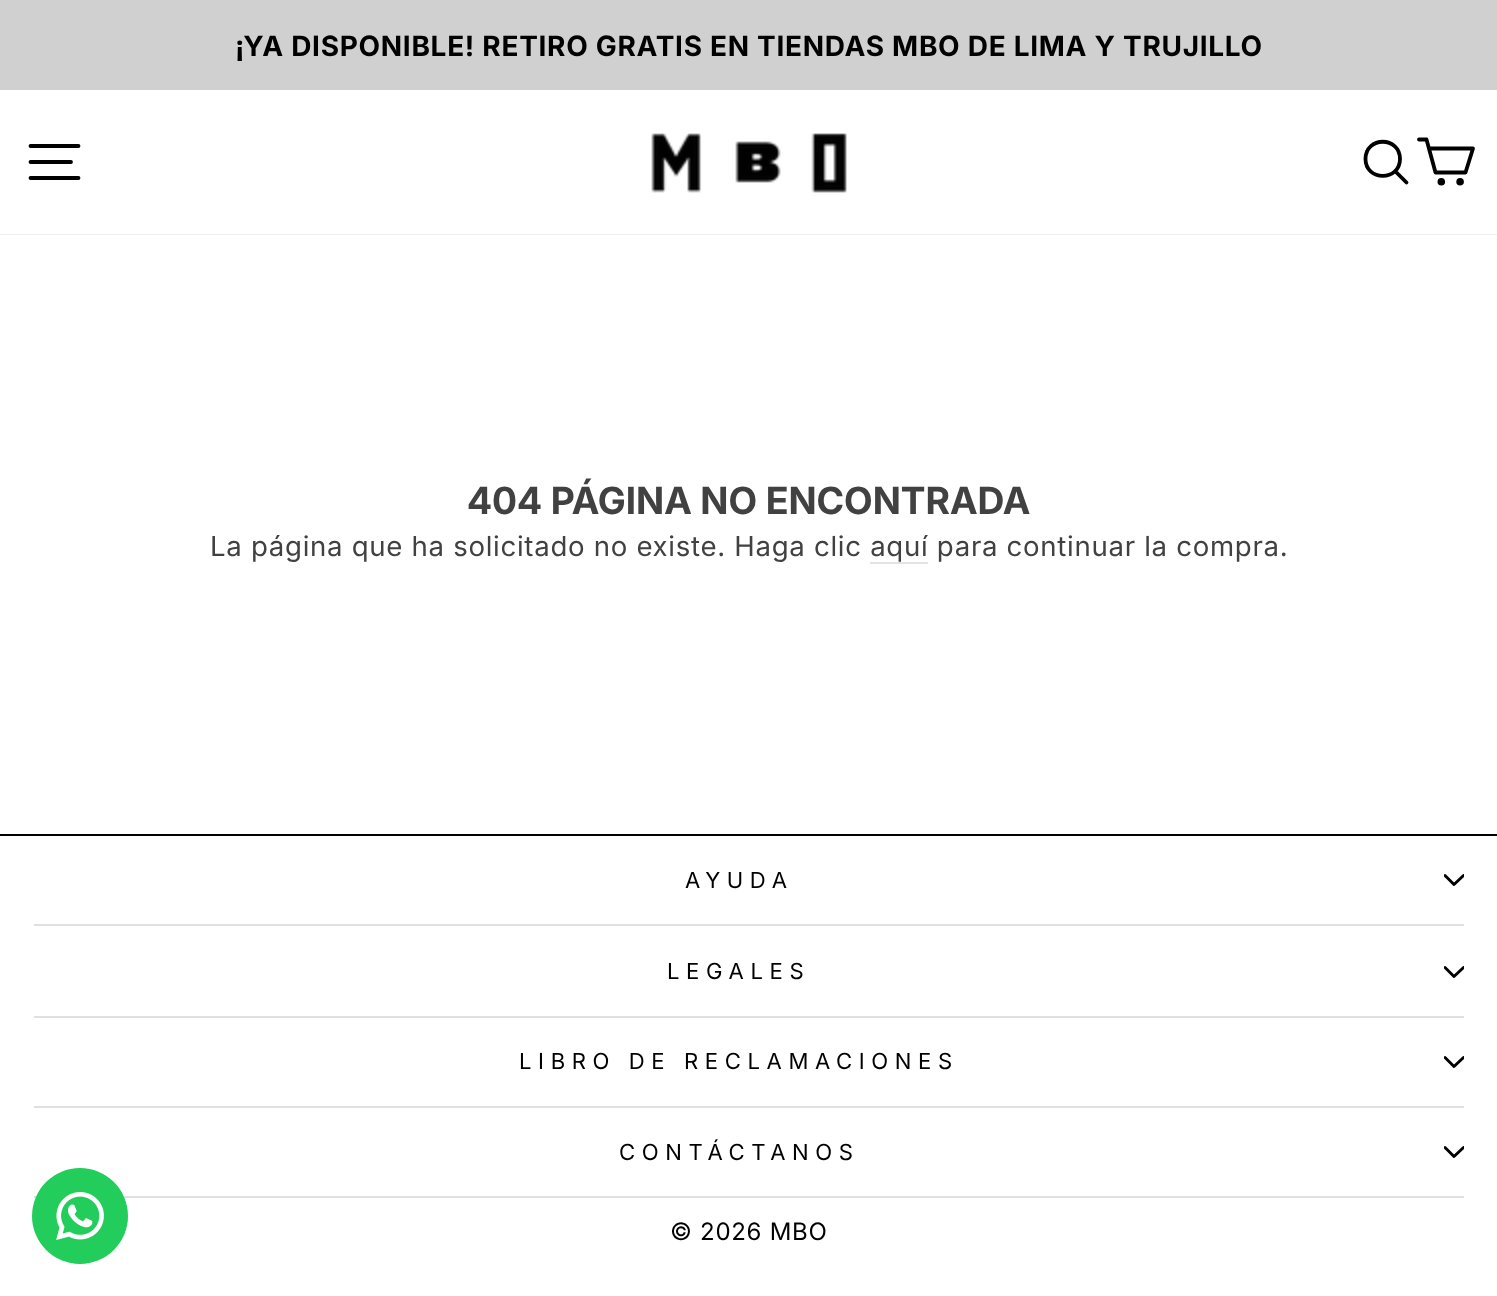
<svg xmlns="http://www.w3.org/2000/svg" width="1497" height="1296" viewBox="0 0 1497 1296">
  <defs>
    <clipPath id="clip1"><rect x="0" y="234" width="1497" height="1"/></clipPath>
    <clipPath id="clip2"><rect x="1444" y="870" width="20" height="20"/></clipPath>
    <clipPath id="clip3"><rect x="1444" y="962" width="20" height="20"/></clipPath>
    <clipPath id="clip4"><rect x="1444" y="1052" width="20" height="20"/></clipPath>
    <clipPath id="clip5"><rect x="1444" y="1142" width="20" height="20"/></clipPath>
  </defs>
  <rect width="100%" height="100%" fill="rgb(255,255,255)"/>
  <g clip-path="url(#clip1)">
    <rect x="0" y="90" width="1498" height="144" fill="rgba(0,0,0,0.2)" filter="blur(1px)"/>
  </g>
  <rect x="0" y="0" width="1497" height="90" fill="rgb(208,208,208)"/>
  <text x="235" y="56" font-family="'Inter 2'" font-size="28" font-weight="bold" letter-spacing="0.7" fill="rgb(0,0,0)">¡YA DISPONIBLE! RETIRO GRATIS EN TIENDAS MBO DE LIMA Y TRUJILLO</text>
  <rect x="34" y="1196" width="1430" height="2" fill="rgb(224,224,224)"/>
  <circle cx="80" cy="1216" r="48" fill="rgb(34,205,91)"/>
  <image x="56" y="1192" width="48" height="48" href="pic1.png"/>
  <path d="M30.5 146H78.5M30.5 162H71M30.5 178H78.5" fill="none" stroke="rgb(0,0,0)" stroke-width="3.8" stroke-linecap="round" stroke-linejoin="round"/>
  <image x="651" y="133" width="196" height="60" href="pic2.png"/>
  <path d="M1400 159C1400 181.5 1365.5 181.5 1365.5 159C1365.5 136 1400 136 1400 159ZM1406.5 182.5L1395.5 171.5" fill="none" stroke="rgb(0,0,0)" stroke-width="3.8" stroke-linecap="round" stroke-linejoin="round"/>
  <path d="M1429 148.5H1473L1465.5 172.5H1435.5L1426.5 139.5H1419" fill="none" stroke="rgb(0,0,0)" stroke-width="3.8" stroke-linecap="round" stroke-linejoin="round"/>
  <circle cx="1441.3" cy="181.7" r="1.9" fill="none" stroke="rgb(0,0,0)" stroke-width="3.8"/>
  <circle cx="1460.1" cy="181.7" r="1.9" fill="none" stroke="rgb(0,0,0)" stroke-width="3.8"/>
  <text x="467" y="514" font-family="Inter" font-size="37.4" font-weight="bold" fill="rgb(65,65,65)">404 PÁGINA NO ENCONTRADA</text>
  <text x="210" y="556" font-family="Inter" font-size="27.6" letter-spacing="0.7" fill="rgb(65,65,65)">La página que ha solicitado no existe. Haga clic aquí para continuar la compra.</text>
  <rect x="870" y="562" width="58" height="2" fill="rgb(227,227,227)"/>
  <rect x="0" y="834" width="1497" height="2" fill="rgb(0,0,0)"/>
  <text x="685" y="888" font-family="Inter" font-size="22.1" letter-spacing="6.6" fill="rgb(0,0,0)">AYUDA</text>
  <g clip-path="url(#clip2)">
    <path d="M1445 875.5L1454 884.5L1463.5 875.5" fill="none" stroke="rgb(0,0,0)" stroke-width="2.9" stroke-linecap="round" stroke-linejoin="round"/>
  </g>
  <rect x="34" y="924" width="1430" height="2" fill="rgb(224,224,224)"/>
  <text x="667" y="979" font-family="Inter" font-size="22.1" letter-spacing="6.6" fill="rgb(0,0,0)">LEGALES</text>
  <g clip-path="url(#clip3)">
    <path d="M1445 967.5L1454 976.5L1463.5 967.5" fill="none" stroke="rgb(0,0,0)" stroke-width="2.9" stroke-linecap="round" stroke-linejoin="round"/>
  </g>
  <rect x="34" y="1016" width="1430" height="2" fill="rgb(224,224,224)"/>
  <text x="519" y="1069" font-family="Inter" font-size="22.1" letter-spacing="6.6" fill="rgb(0,0,0)">LIBRO DE RECLAMACIONES</text>
  <g clip-path="url(#clip4)">
    <path d="M1445 1057.5L1454 1066.5L1463.5 1057.5" fill="none" stroke="rgb(0,0,0)" stroke-width="2.9" stroke-linecap="round" stroke-linejoin="round"/>
  </g>
  <rect x="34" y="1106" width="1430" height="2" fill="rgb(224,224,224)"/>
  <text x="619" y="1160" font-family="Inter" font-size="22.1" letter-spacing="6.6" fill="rgb(0,0,0)">CONTÁCTANOS</text>
  <g clip-path="url(#clip5)">
    <path d="M1445 1147.5L1454 1156.5L1463.5 1147.5" fill="none" stroke="rgb(0,0,0)" stroke-width="2.9" stroke-linecap="round" stroke-linejoin="round"/>
  </g>
  <text x="670" y="1240" font-family="Inter" font-size="24" letter-spacing="0.7" fill="rgb(0,0,0)">© 2026 MBO</text>
</svg>
